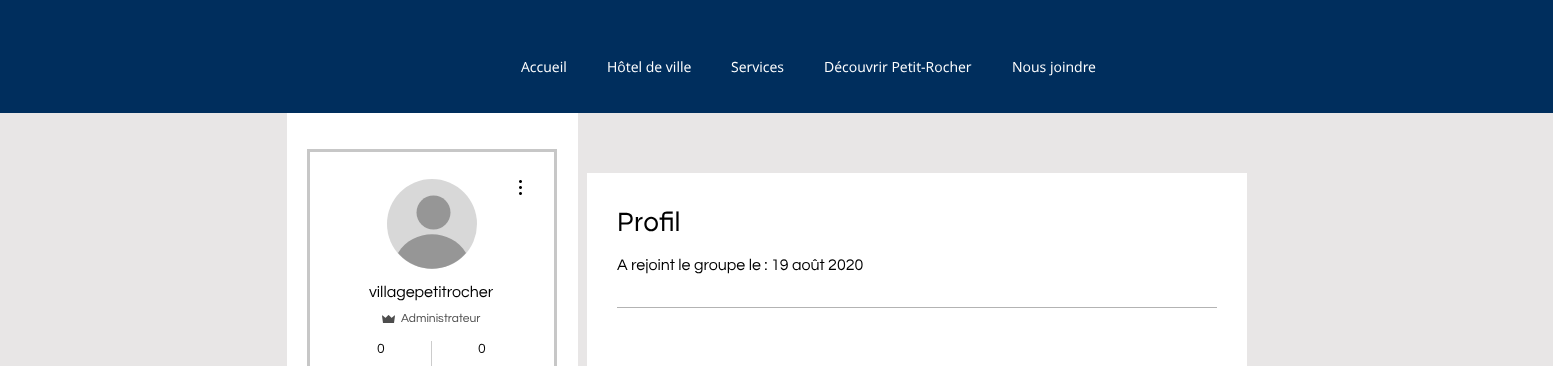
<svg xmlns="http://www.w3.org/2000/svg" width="1553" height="366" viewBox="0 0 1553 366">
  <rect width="100%" height="100%" fill="rgb(232,230,230)"/>
  <rect x="0" y="0" width="1553" height="113" fill="rgb(0,46,93)"/>
  <g font-family="Open Sans" font-size="14" fill="rgb(255,255,255)">
    <text x="521" y="72">Accueil</text>
    <text x="607" y="72">Hôtel de ville</text>
    <text x="731" y="72">Services</text>
    <text x="824" y="72">Découvrir Petit-Rocher</text>
    <text x="1012" y="72">Nous joindre</text>
  </g>
  <rect x="587" y="173" width="660" height="193" fill="rgb(255,255,255)"/>
  <text x="617" y="231" font-family="Syne" font-size="28" fill="rgb(0,0,0)">Profil</text>
  <text x="617" y="270" font-family="Questrial" font-size="16" fill="rgb(0,0,0)">A rejoint le groupe le : 19 août 2020</text>
  <rect x="617" y="307" width="600" height="1" fill="rgb(179,179,179)"/>
  <rect x="287" y="113" width="291" height="253" fill="rgb(255,255,255)"/>
  <rect x="308.5" y="150.5" width="247" height="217" fill="none" stroke="rgb(199,199,199)" stroke-width="3"/>
  <circle cx="432" cy="224" r="45" fill="rgb(216,216,216)"/>
  <circle cx="433.5" cy="212.5" r="17" fill="rgb(150,150,150)"/>
  <path d="M466 253C448 274 416 274 398 253C413 228 451 228 466 253Z" fill="rgb(150,150,150)"/>
  <image x="519" y="180" width="3" height="15" href="pic1.png"/>
  <text x="369" y="297" font-family="Questrial" font-size="16" fill="rgb(0,0,0)">villagepetitrocher</text>
  <image x="382" y="315" width="13" height="8" href="pic2.png"/>
  <text x="401" y="322" font-family="Questrial" font-size="12" fill="rgb(77,77,77)">Administrateur</text>
  <text x="377" y="353" font-family="Questrial" font-size="14" fill="rgb(0,0,0)">0</text>
  <rect x="431" y="341" width="1" height="25" fill="rgb(204,204,204)"/>
  <text x="478" y="353" font-family="Questrial" font-size="14" fill="rgb(0,0,0)">0</text>
</svg>
